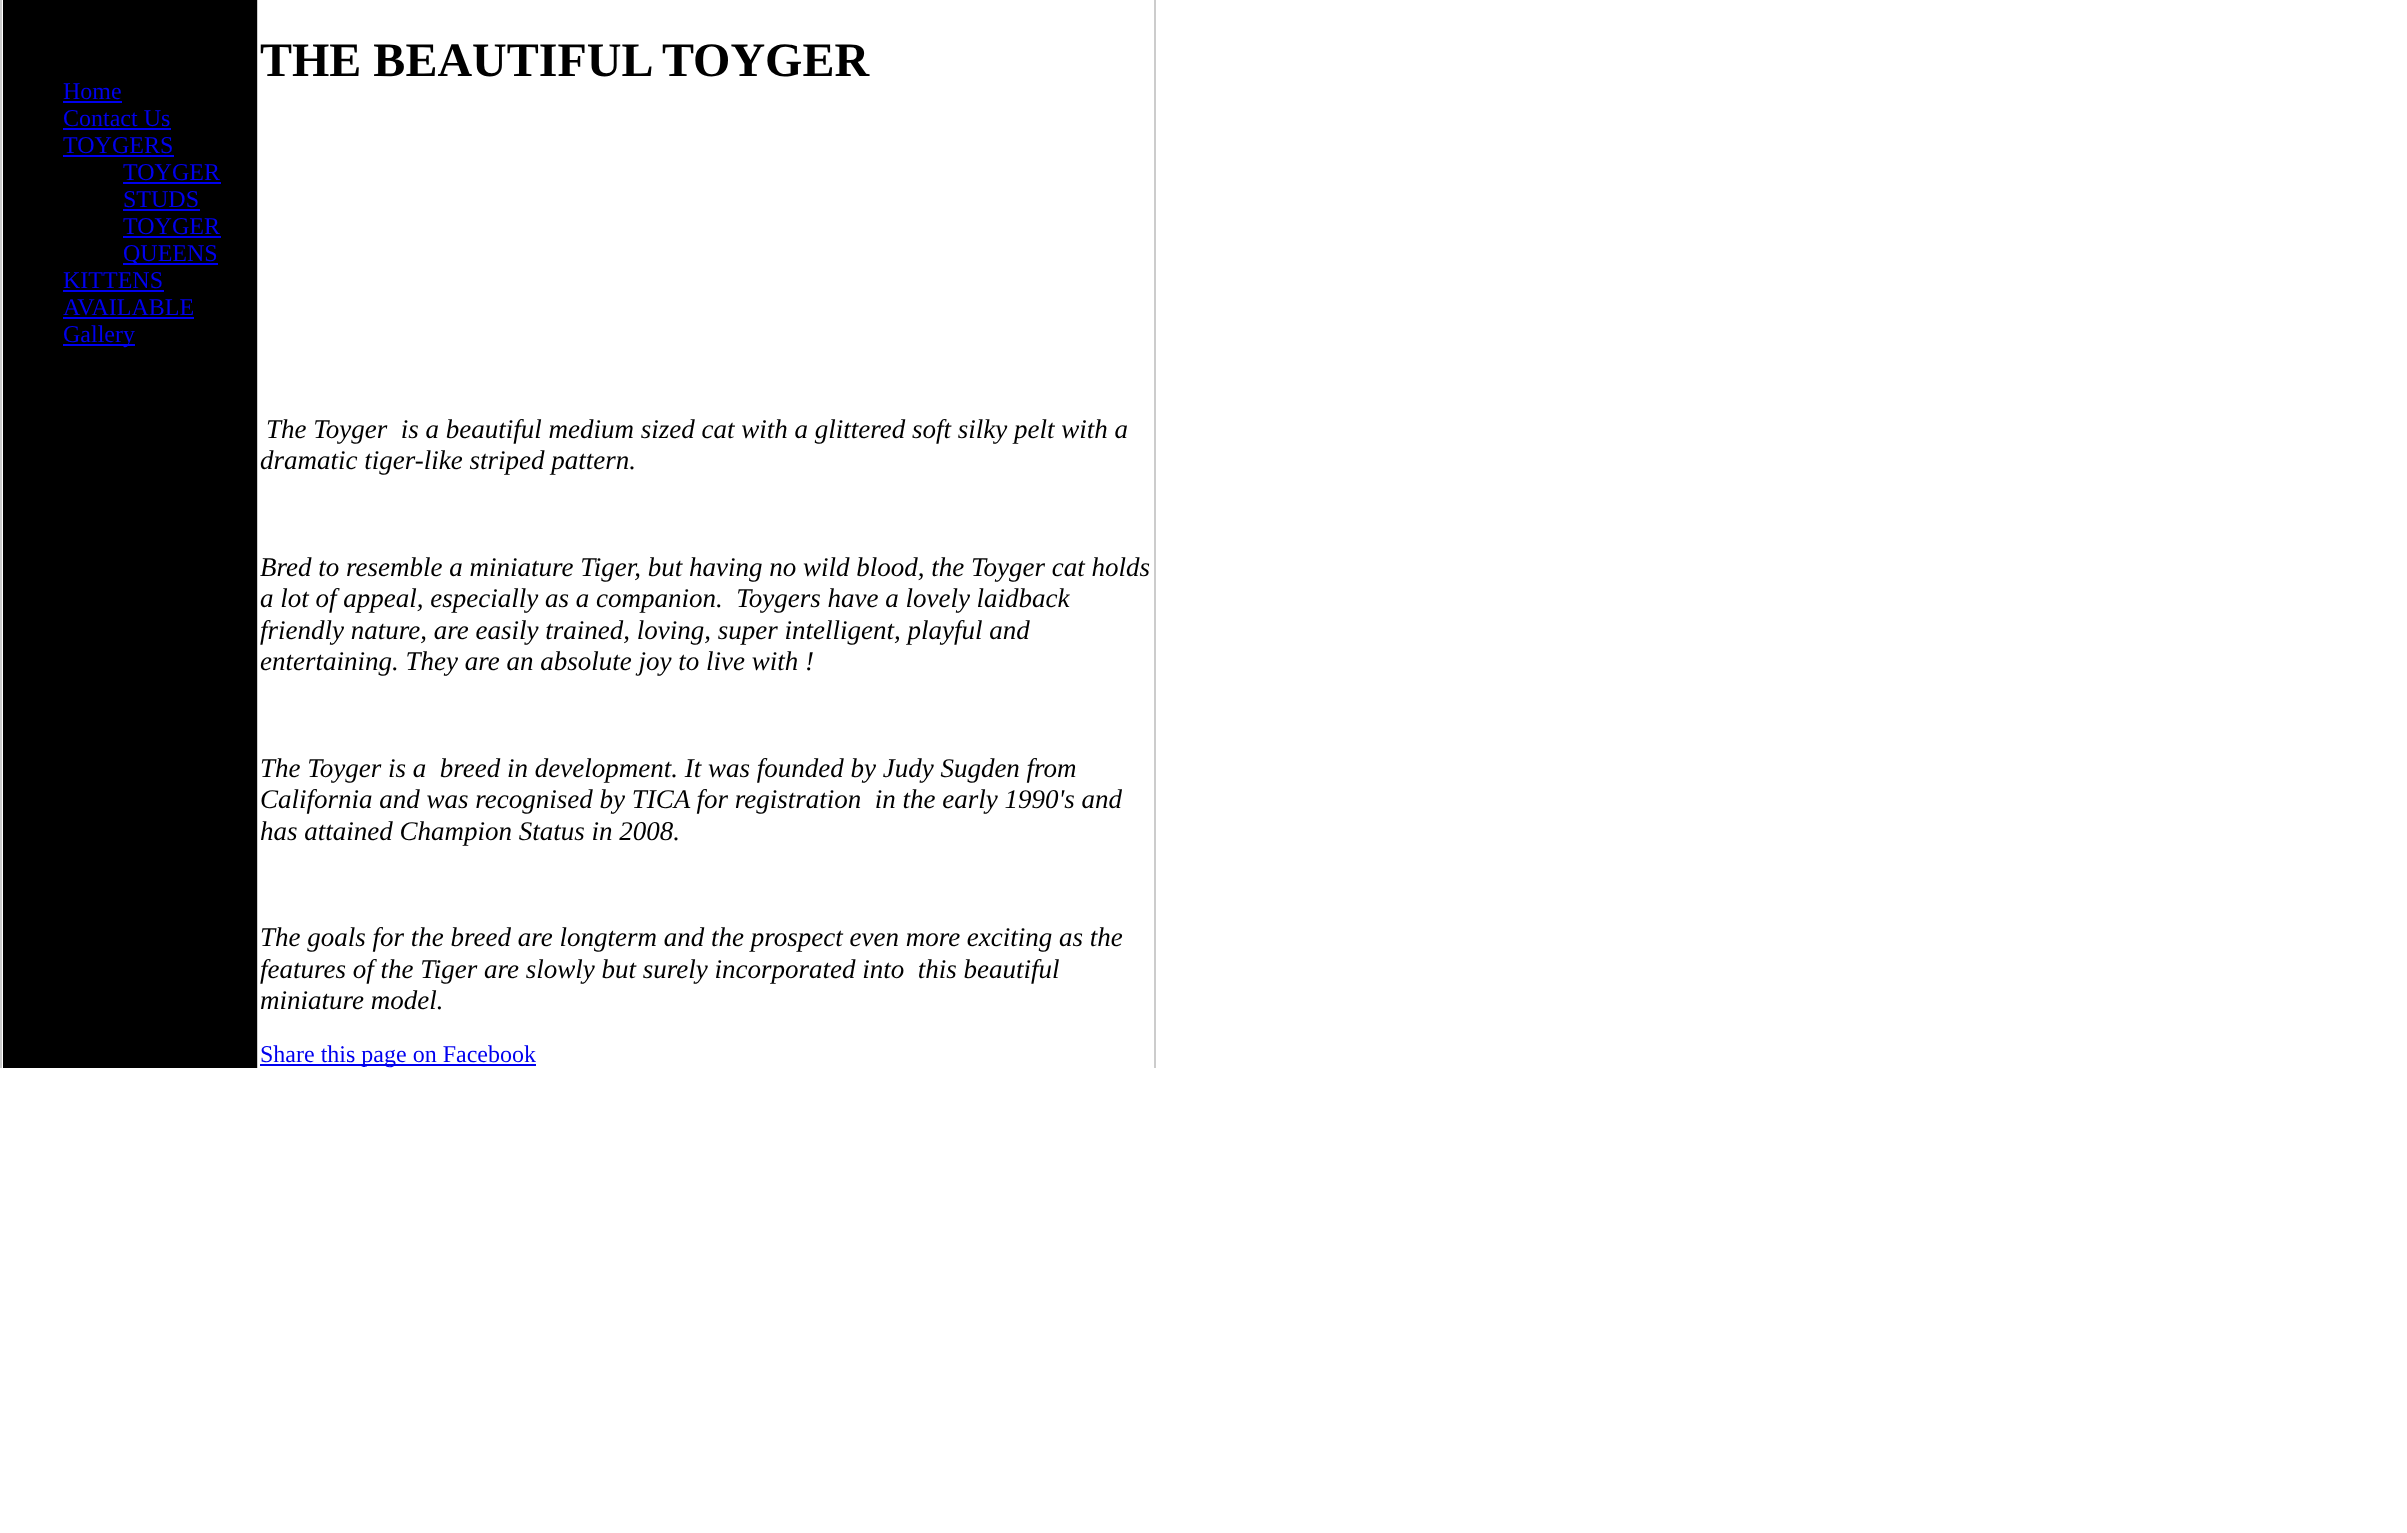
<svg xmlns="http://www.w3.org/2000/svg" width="2407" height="1533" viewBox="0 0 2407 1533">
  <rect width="100%" height="100%" fill="rgb(255,255,255)"/>
  <rect x="0" y="0" width="2" height="1068" fill="rgb(204,204,204)"/>
  <rect x="3" y="0" width="254" height="1068" fill="rgb(0,0,0)"/>
  <text x="63" y="99" font-family="Liberation Serif" font-size="24" fill="rgb(0,0,238)">Home</text>
  <rect x="63" y="101" width="59" height="2" fill="rgb(0,0,238)"/>
  <text x="63" y="126" font-family="Liberation Serif" font-size="24" fill="rgb(0,0,238)">Contact Us</text>
  <rect x="63" y="128" width="108" height="2" fill="rgb(0,0,238)"/>
  <text x="63" y="153" font-family="Liberation Serif" font-size="24" fill="rgb(0,0,238)">TOYGERS</text>
  <rect x="63" y="155" width="111" height="2" fill="rgb(0,0,238)"/>
  <text x="123" y="180" font-family="Liberation Serif" font-size="24" fill="rgb(0,0,238)">TOYGER</text>
  <rect x="123" y="182" width="98" height="2" fill="rgb(0,0,238)"/>
  <text x="123" y="207" font-family="Liberation Serif" font-size="24" fill="rgb(0,0,238)">STUDS</text>
  <rect x="123" y="209" width="77" height="2" fill="rgb(0,0,238)"/>
  <text x="123" y="234" font-family="Liberation Serif" font-size="24" fill="rgb(0,0,238)">TOYGER</text>
  <rect x="123" y="236" width="98" height="2" fill="rgb(0,0,238)"/>
  <rect x="123" y="263" width="95" height="2" fill="rgb(0,0,238)"/>
  <g font-family="Liberation Serif" font-size="24" fill="rgb(0,0,238)">
    <text x="123" y="261">QUEENS</text>
    <text x="63" y="288">KITTENS</text>
  </g>
  <rect x="63" y="290" width="101" height="2" fill="rgb(0,0,238)"/>
  <text x="63" y="315" font-family="Liberation Serif" font-size="24" fill="rgb(0,0,238)">AVAILABLE</text>
  <rect x="63" y="317" width="131" height="2" fill="rgb(0,0,238)"/>
  <rect x="63" y="344" width="72" height="2" fill="rgb(0,0,238)"/>
  <text x="63" y="342" font-family="Liberation Serif" font-size="24" fill="rgb(0,0,238)">Gallery</text>
  <rect x="257" y="0" width="1" height="1068" fill="rgb(204,204,204)"/>
  <text x="260" y="76" font-family="Liberation Serif" font-size="48" font-weight="bold" fill="rgb(0,0,0)">THE BEAUTIFUL TOYGER</text>
  <g font-family="Liberation Serif" font-size="27" font-style="italic" fill="rgb(0,0,0)">
    <text x="266" y="438" xml:space="preserve">The Toyger  is a beautiful medium sized cat with a glittered soft silky pelt with a</text>
    <text x="260" y="469">dramatic tiger-like striped pattern.</text>
    <text xml:space="preserve"><tspan x="260" y="576">Bred to resemble a miniature Tiger, but having no wild blood, the Toyger cat holds</tspan><tspan x="260" y="607">a lot of appeal, especially as a companion.  Toygers have a lovely laidback</tspan><tspan x="260" y="639">friendly nature, are easily trained, loving, super intelligent, playful and</tspan><tspan x="260" y="670">entertaining. They are an absolute joy to live with !</tspan></text>
    <text xml:space="preserve"><tspan x="260" y="777">The Toyger is a  breed in development. It was founded by Judy Sugden from</tspan><tspan x="260" y="808">California and was recognised by TICA for registration  in the early 1990's and</tspan><tspan x="260" y="840">has attained Champion Status in 2008.</tspan></text>
    <text xml:space="preserve"><tspan x="260" y="946">The goals for the breed are longterm and the prospect even more exciting as the</tspan><tspan x="260" y="978">features of the Tiger are slowly but surely incorporated into  this beautiful</tspan><tspan x="260" y="1009">miniature model</tspan></text>
  </g>
  <text x="436" y="1009" font-family="Liberation Serif" font-size="27" fill="rgb(0,0,0)">.</text>
  <rect x="260" y="1064" width="276" height="2" fill="rgb(0,0,238)"/>
  <text x="260" y="1062" font-family="Liberation Serif" font-size="24" fill="rgb(0,0,238)">Share this page on Facebook</text>
  <rect x="1154" y="0" width="2" height="1068" fill="rgb(204,204,204)"/>
</svg>
